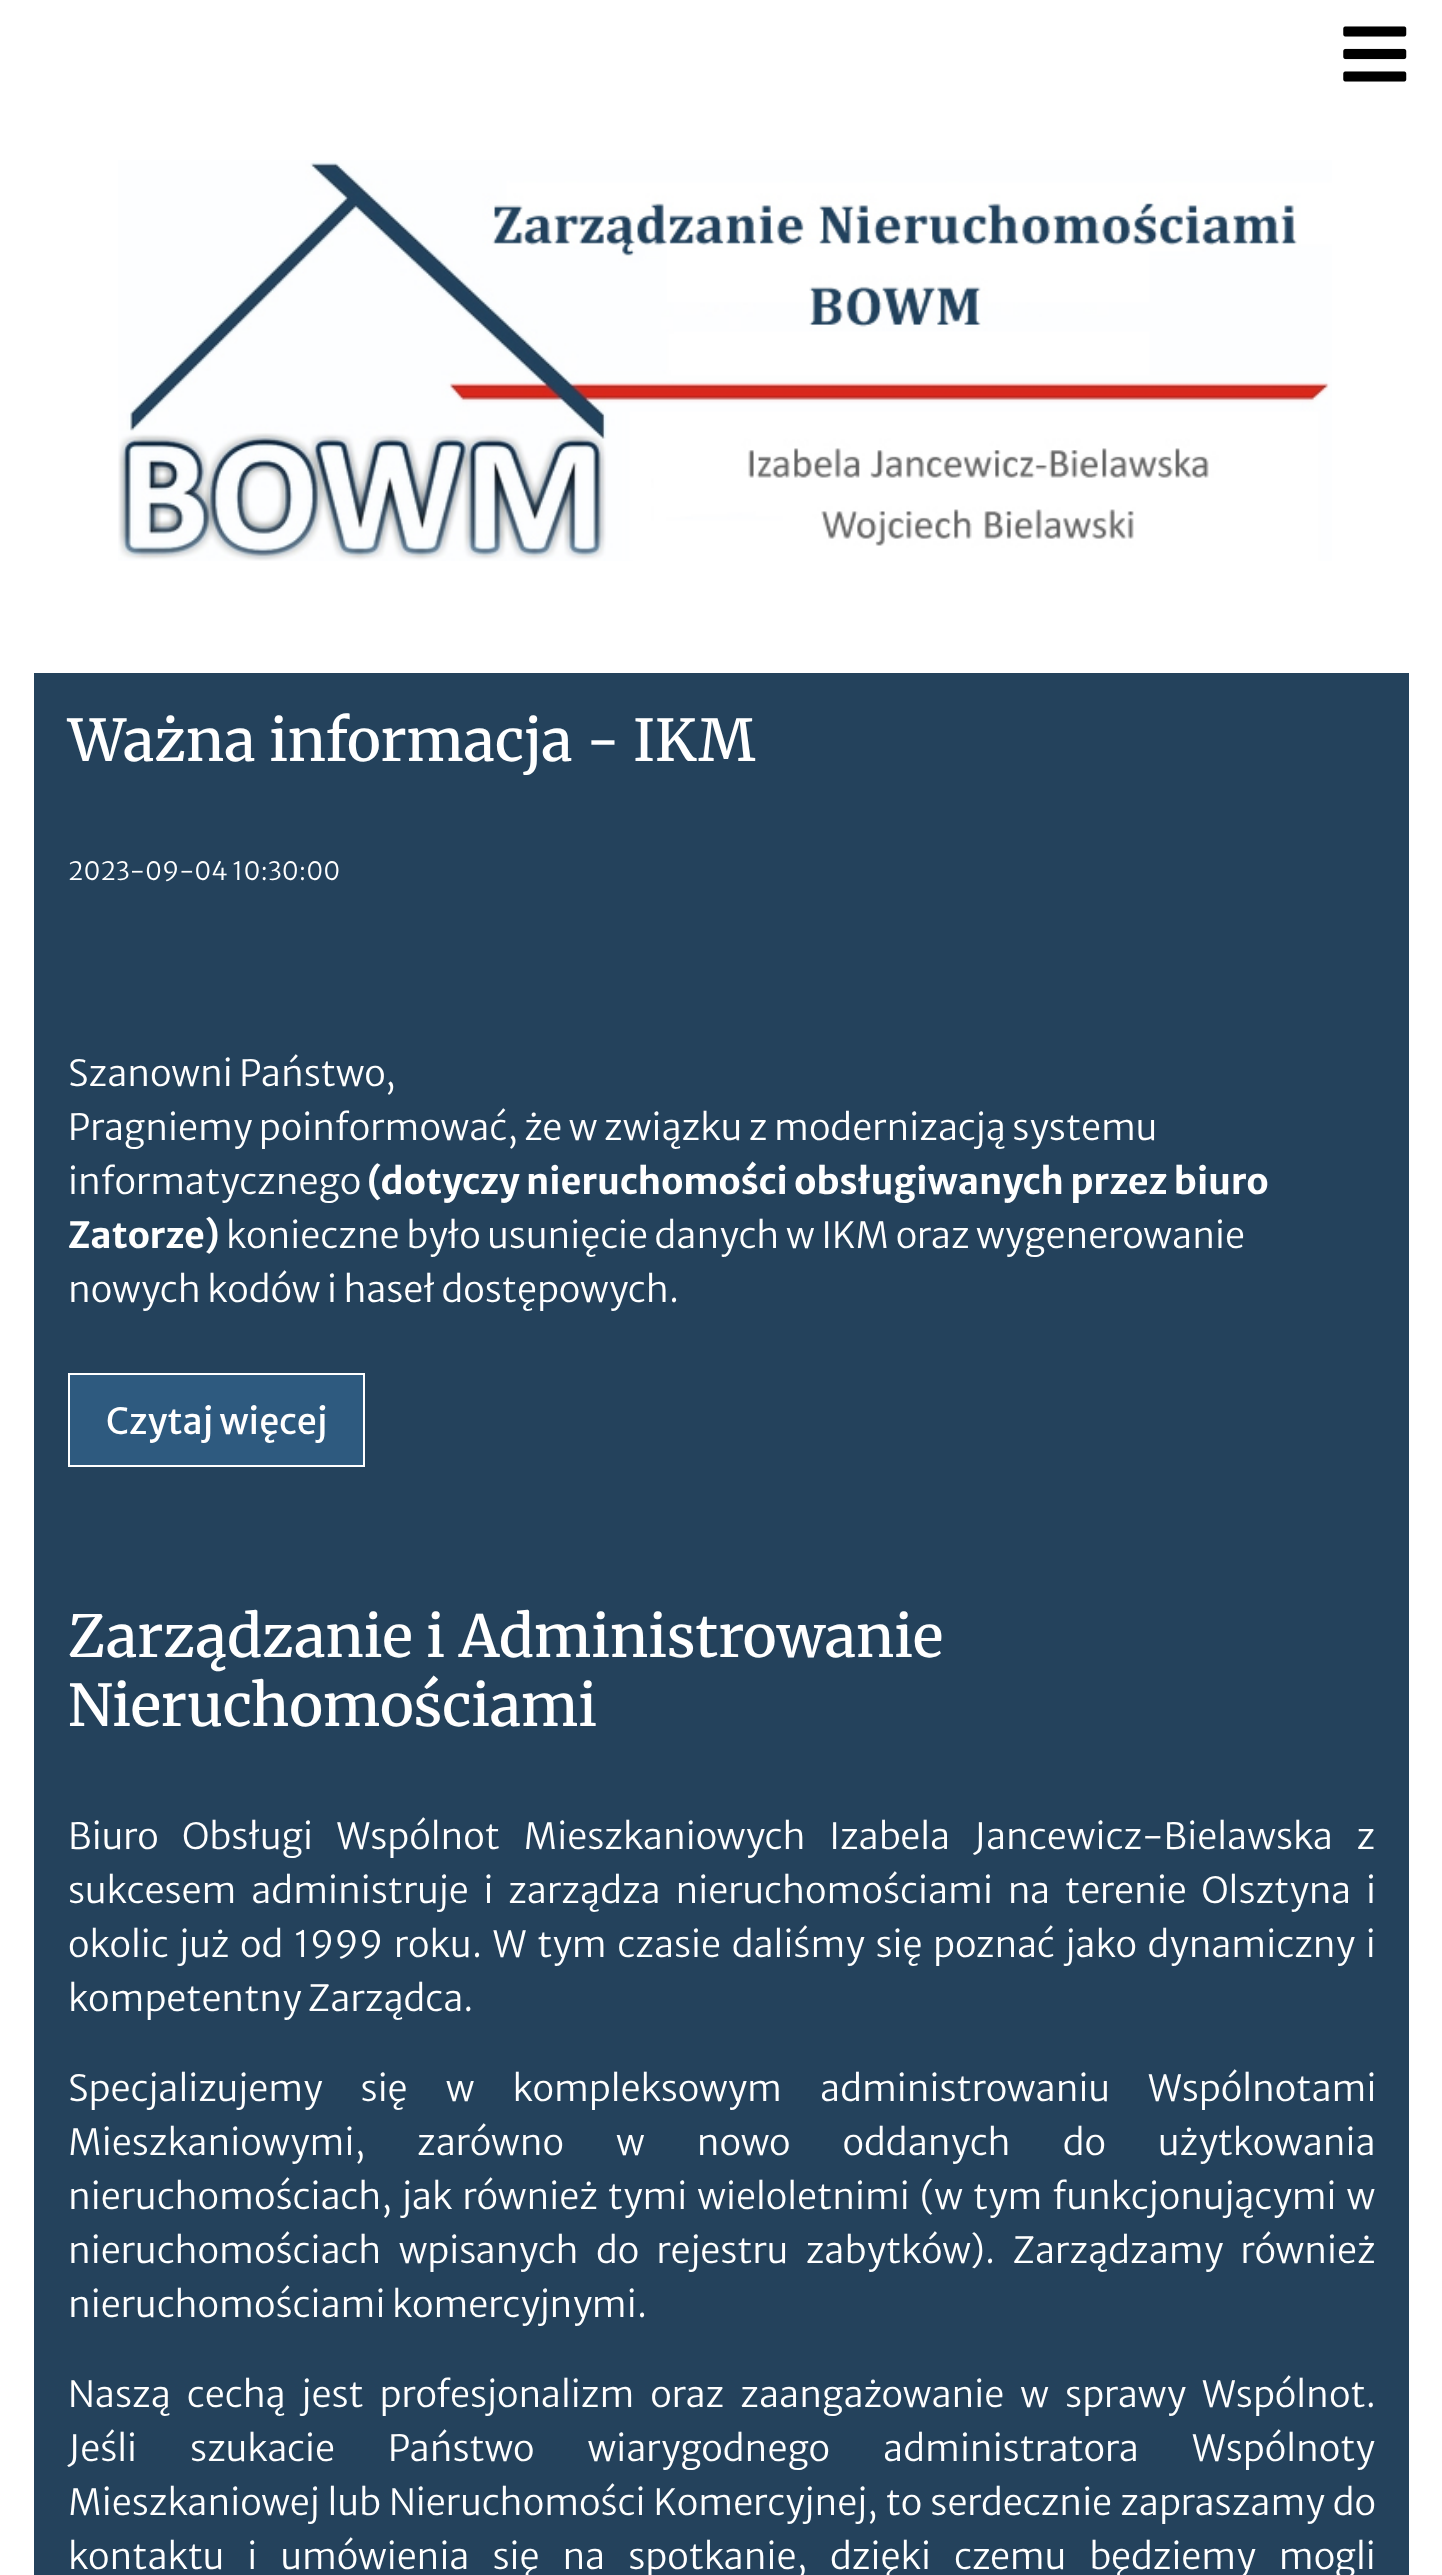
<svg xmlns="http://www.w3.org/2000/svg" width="1442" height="2575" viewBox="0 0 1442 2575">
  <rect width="100%" height="100%" fill="rgb(255,255,255)"/>
  <image x="1343" y="26" width="64" height="56" href="pic1.png"/>
  <image x="118" y="160" width="1214" height="401" href="pic2.png"/>
  <rect x="34" y="673" width="1375" height="1902" fill="rgb(36,66,92)"/>
  <text x="68" y="761" font-family="Merriweather" font-size="57.6" font-weight="500" fill="rgb(255,255,255)">Ważna informacja - IKM</text>
  <text x="68" y="880" font-family="Merriweather Sans" font-size="25.25" font-weight="300" fill="rgb(255,255,255)">2023-09-04 10:30:00</text>
  <g font-family="Merriweather Sans" font-size="36" font-weight="300" fill="rgb(255,255,255)">
    <text>
      <tspan x="68" y="1086">Szanowni Państwo,</tspan>
      <tspan x="68" y="1140">Pragniemy poinformować, że w związku z modernizacją systemu</tspan>
      <tspan x="68" y="1194">informatycznego</tspan>
    </text>
  </g>
  <g font-family="Merriweather Sans" font-size="36" font-weight="bold" fill="rgb(255,255,255)">
    <text x="367" y="1194">(dotyczy nieruchomości obsługiwanych przez biuro</text>
    <text x="68" y="1248">Zatorze)</text>
  </g>
  <g font-family="Merriweather Sans" font-size="36" font-weight="300" fill="rgb(255,255,255)">
    <text x="226" y="1248">konieczne było usunięcie danych w IKM oraz wygenerowanie</text>
    <text x="68" y="1302">nowych kodów i haseł dostępowych.</text>
  </g>
  <rect x="69" y="1374" width="295" height="92" fill="rgb(46,90,127)" stroke="rgb(255,255,255)" stroke-width="2"/>
  <text x="106" y="1434" font-family="Merriweather Sans" font-size="36" fill="rgb(255,255,255)">Czytaj więcej</text>
  <g font-family="Merriweather" font-size="57.6" font-weight="500" fill="rgb(255,255,255)">
    <text>
      <tspan x="68" y="1657">Zarządzanie i Administrowanie</tspan>
      <tspan x="68" y="1726">Nieruchomościami</tspan>
    </text>
  </g>
  <g font-family="Merriweather Sans" font-size="36" font-weight="300" fill="rgb(255,255,255)">
    <text>
      <tspan x="68" y="1849" word-spacing="17">Biuro Obsługi Wspólnot Mieszkaniowych Izabela Jancewicz-Bielawska z</tspan>
      <tspan x="68" y="1903" word-spacing="8.25">sukcesem administruje i zarządza nieruchomościami na terenie Olsztyna i</tspan>
      <tspan x="68" y="1957" word-spacing="4.1">okolic już od 1999 roku. W tym czasie daliśmy się poznać jako dynamiczny i</tspan>
      <tspan x="68" y="2011">kompetentny Zarządca.</tspan>
    </text>
    <text>
      <tspan x="68" y="2101" word-spacing="31.5">Specjalizujemy się w kompleksowym administrowaniu Wspólnotami</tspan>
      <tspan x="68" y="2155" word-spacing="45.5">Mieszkaniowymi, zarówno w nowo oddanych do użytkowania</tspan>
      <tspan x="68" y="2209" word-spacing="3.5">nieruchomościach, jak również tymi wieloletnimi (w tym funkcjonującymi w</tspan>
      <tspan x="68" y="2263" word-spacing="10.75">nieruchomościach wpisanych do rejestru zabytków). Zarządzamy również</tspan>
      <tspan x="68" y="2317">nieruchomościami komercyjnymi.</tspan>
    </text>
    <text>
      <tspan x="68" y="2407" word-spacing="9.5">Naszą cechą jest profesjonalizm oraz zaangażowanie w sprawy Wspólnot.</tspan>
      <tspan x="68" y="2461" word-spacing="46.5">Jeśli szukacie Państwo wiarygodnego administratora Wspólnoty</tspan>
      <tspan x="68" y="2515" word-spacing="1.5">Mieszkaniowej lub Nieruchomości Komercyjnej, to serdecznie zapraszamy do</tspan>
      <tspan x="68" y="2569" word-spacing="16.5">kontaktu i umówienia się na spotkanie, dzięki czemu będziemy mogli</tspan>
    </text>
  </g>
</svg>
